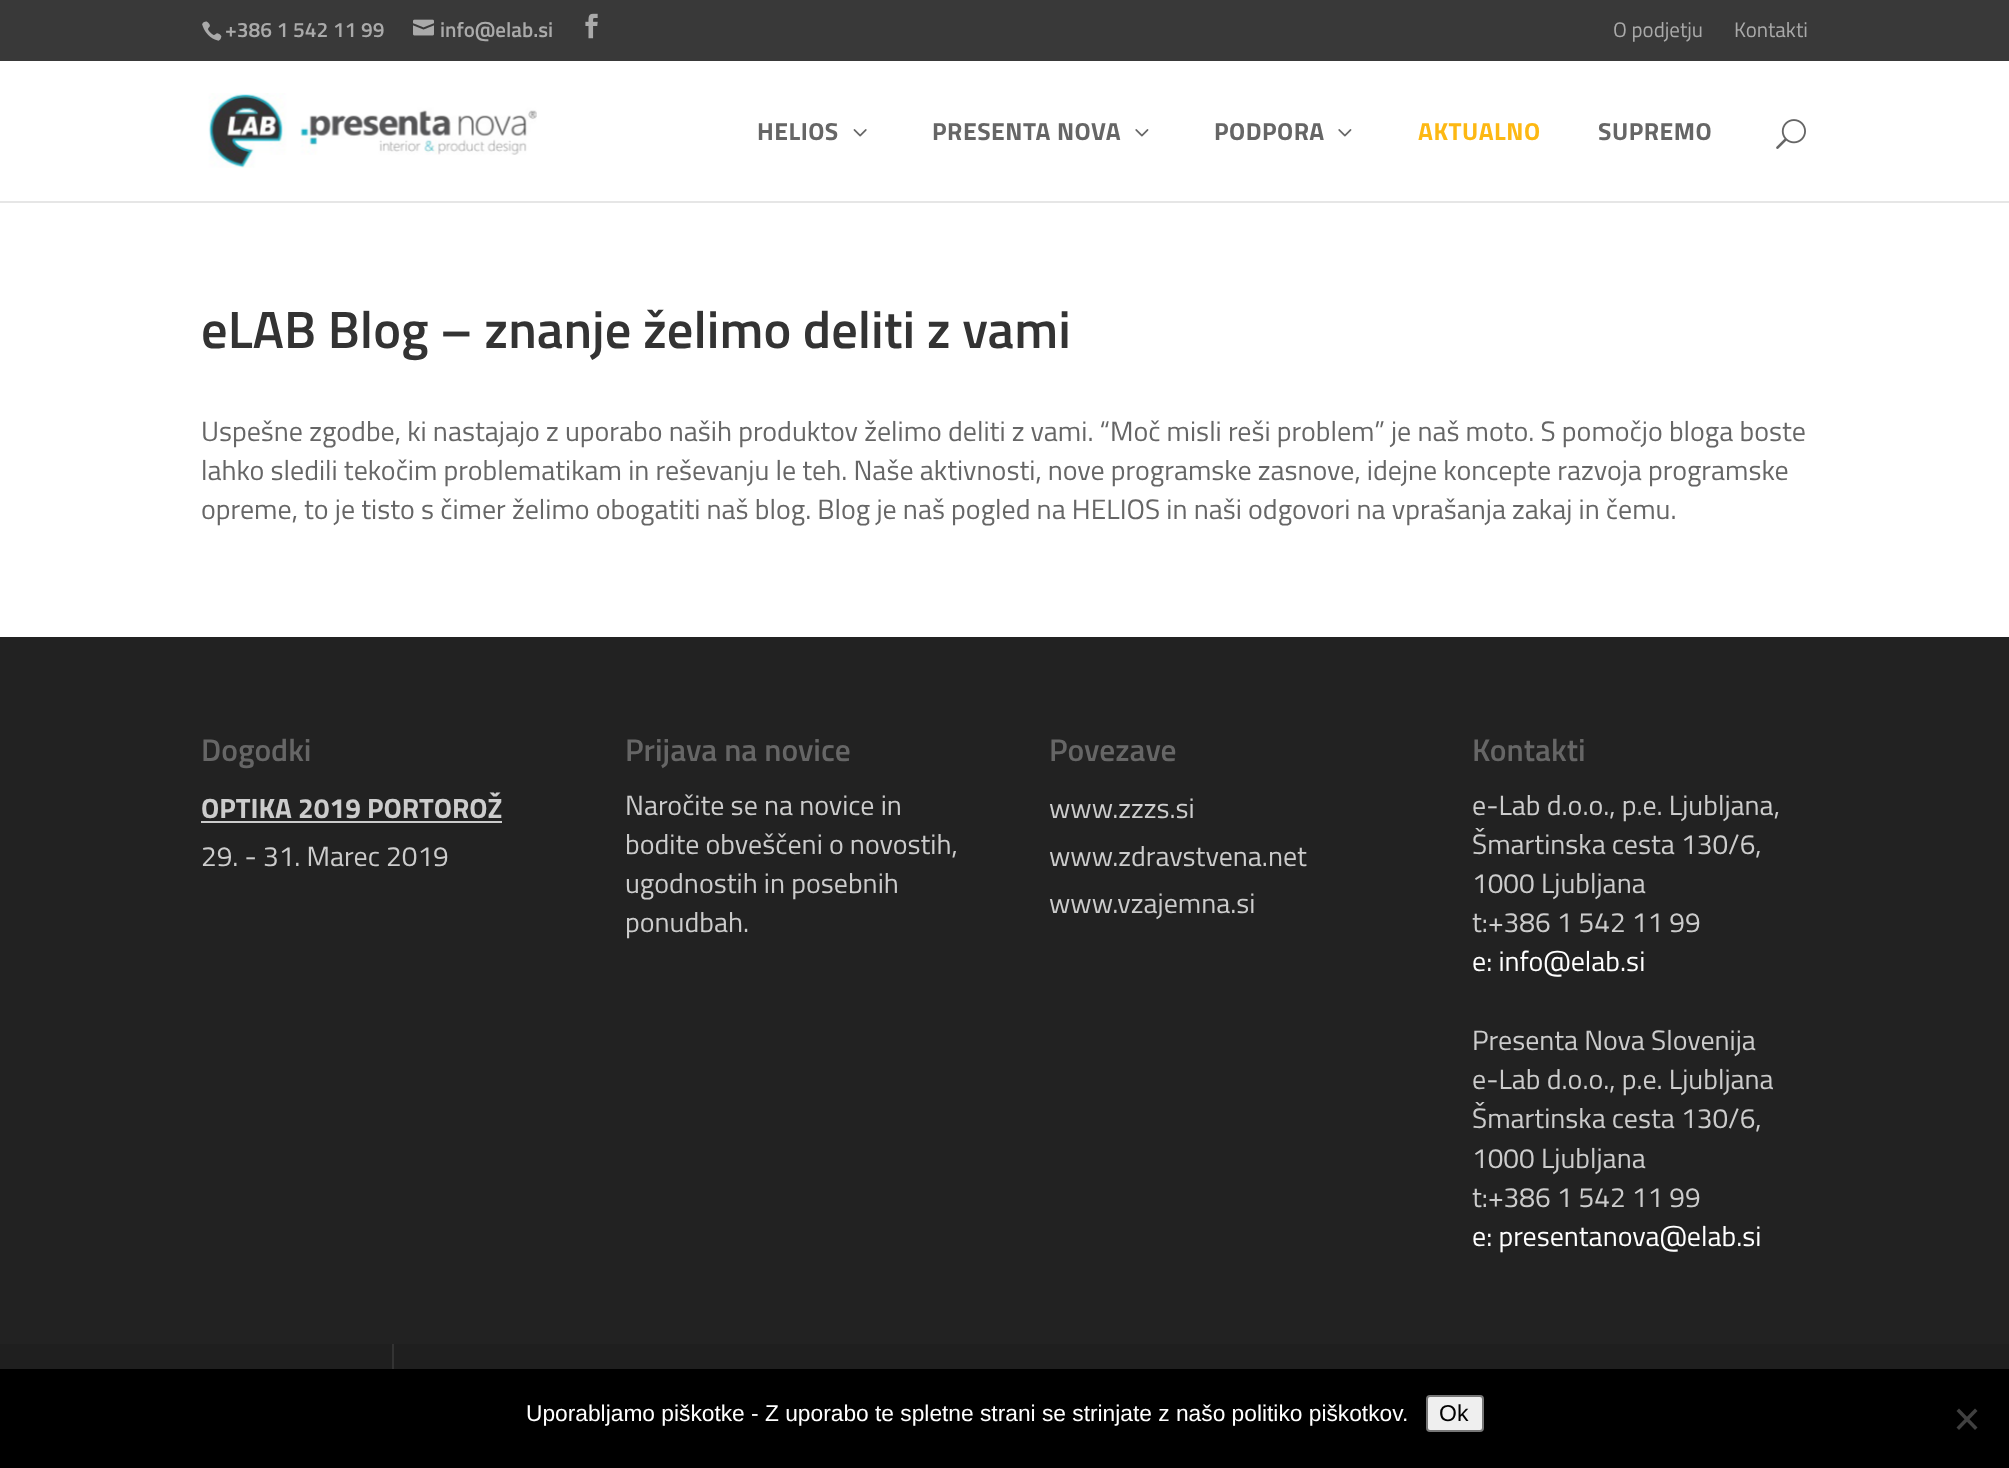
<svg xmlns="http://www.w3.org/2000/svg" width="2009" height="1468" viewBox="0 0 2009 1468">
  <rect width="100%" height="100%" fill="rgb(255,255,255)"/>
  <rect x="0" y="0" width="2009" height="61" fill="rgb(57,57,57)"/>
  <image x="202" y="21" width="20" height="20" href="pic1.png"/>
  <text x="225" y="37" font-family="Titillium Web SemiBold" font-size="21" font-weight="600" fill="rgb(170,170,170)">+386 1 542 11 99</text>
  <image x="413" y="19" width="21" height="17" href="pic2.png"/>
  <text x="440" y="37" font-family="Titillium Web SemiBold" font-size="21" font-weight="600" fill="rgb(170,170,170)">info@elab.si</text>
  <image x="585" y="13" width="13" height="26" href="pic3.png"/>
  <g font-family="Titillium Web" font-size="21" fill="rgb(170,170,170)">
    <text x="1613" y="37">O podjetju</text>
    <text x="1734" y="37">Kontakti</text>
  </g>
  <rect x="0" y="201" width="2009" height="2" fill="rgb(230,230,230)"/>
  <image x="208" y="93" width="329" height="75" href="pic4.png"/>
  <text x="757" y="140" font-family="Titillium Web" font-size="24.75" font-weight="bold" letter-spacing="0.5" fill="rgb(102,102,102)">HELIOS</text>
  <image x="853" y="129" width="14" height="8" href="pic5.png"/>
  <text x="932" y="140" font-family="Titillium Web" font-size="24.75" font-weight="bold" letter-spacing="0.5" fill="rgb(102,102,102)">PRESENTA NOVA</text>
  <image x="1135" y="129" width="14" height="8" href="pic6.png"/>
  <text x="1214" y="140" font-family="Titillium Web" font-size="24.75" font-weight="bold" letter-spacing="0.5" fill="rgb(102,102,102)">PODPORA</text>
  <image x="1338" y="129" width="14" height="8" href="pic6.png"/>
  <text x="1418" y="140" font-family="Titillium Web" font-size="24.75" font-weight="bold" letter-spacing="0.5" fill="rgb(253,184,19)">AKTUALNO</text>
  <text x="1598" y="140" font-family="Titillium Web" font-size="24.75" font-weight="bold" letter-spacing="0.5" fill="rgb(102,102,102)">SUPREMO</text>
  <image x="1776" y="119" width="30" height="30" href="pic7.png"/>
  <text x="201" y="348" font-family="Titillium Web SemiBold" font-size="52.5" font-weight="600" fill="rgb(51,51,51)">eLAB Blog – znanje želimo deliti z vami</text>
  <g font-family="Titillium Web" font-size="28" fill="rgb(102,102,102)">
    <text>
      <tspan x="201" y="441">Uspešne zgodbe, ki nastajajo z uporabo naših produktov želimo deliti z vami. “Moč misli reši problem” je naš moto. S pomočjo bloga boste</tspan>
      <tspan x="201" y="480">lahko sledili tekočim problematikam in reševanju le teh. Naše aktivnosti, nove programske zasnove, idejne koncepte razvoja programske</tspan>
      <tspan x="201" y="519">opreme, to je tisto s čimer želimo obogatiti naš blog. Blog je naš pogled na HELIOS in naši odgovori na vprašanja zakaj in čemu.</tspan>
    </text>
  </g>
  <rect x="0" y="637" width="2009" height="707" fill="rgb(34,34,34)"/>
  <text x="201" y="761" font-family="Titillium Web SemiBold" font-size="31.5" font-weight="600" fill="rgb(102,102,102)">Dogodki</text>
  <text x="201" y="818" font-family="Titillium Web" font-size="28" font-weight="bold" fill="rgb(204,204,204)">OPTIKA 2019 PORTOROŽ</text>
  <rect x="201" y="821" width="301" height="2" fill="rgb(204,204,204)"/>
  <text x="201" y="866" font-family="Titillium Web" font-size="28" fill="rgb(204,204,204)">29. - 31. Marec 2019</text>
  <text x="625" y="761" font-family="Titillium Web SemiBold" font-size="31.5" font-weight="600" fill="rgb(102,102,102)">Prijava na novice</text>
  <g font-family="Titillium Web" font-size="28" fill="rgb(204,204,204)">
    <text>
      <tspan x="625" y="815">Naročite se na novice in</tspan>
      <tspan x="625" y="854">bodite obveščeni o novostih,</tspan>
      <tspan x="625" y="893">ugodnostih in posebnih</tspan>
      <tspan x="625" y="932">ponudbah.</tspan>
    </text>
  </g>
  <text x="1049" y="761" font-family="Titillium Web SemiBold" font-size="31.5" font-weight="600" fill="rgb(102,102,102)">Povezave</text>
  <g font-family="Titillium Web" font-size="28" fill="rgb(204,204,204)">
    <text>
      <tspan x="1049" y="818">www.zzzs.si</tspan>
      <tspan x="1049" y="866">www.zdravstvena.net</tspan>
      <tspan x="1049" y="913">www.vzajemna.si</tspan>
    </text>
  </g>
  <text x="1472" y="761" font-family="Titillium Web SemiBold" font-size="31.5" font-weight="600" fill="rgb(102,102,102)">Kontakti</text>
  <g font-family="Titillium Web" font-size="28" fill="rgb(204,204,204)">
    <text>
      <tspan x="1472" y="815">e-Lab d.o.o., p.e. Ljubljana,</tspan>
      <tspan x="1472" y="854">Šmartinska cesta 130/6,</tspan>
      <tspan x="1472" y="893">1000 Ljubljana</tspan>
      <tspan x="1472" y="932">t:+386 1 542 11 99</tspan>
    </text>
  </g>
  <text x="1472" y="971" font-family="Titillium Web" font-size="28" fill="rgb(255,255,255)">e: info@elab.si</text>
  <g font-family="Titillium Web" font-size="28" fill="rgb(204,204,204)">
    <text>
      <tspan x="1472" y="1050">Presenta Nova Slovenija</tspan>
      <tspan x="1472" y="1089">e-Lab d.o.o., p.e. Ljubljana</tspan>
      <tspan x="1472" y="1128">Šmartinska cesta 130/6,</tspan>
      <tspan x="1472" y="1168">1000 Ljubljana</tspan>
      <tspan x="1472" y="1207">t:+386 1 542 11 99</tspan>
    </text>
  </g>
  <text x="1472" y="1246" font-family="Titillium Web" font-size="28" fill="rgb(255,255,255)">e: presentanova@elab.si</text>
  <rect x="0" y="1344" width="2009" height="25" fill="rgb(31,31,31)"/>
  <rect x="392" y="1344" width="2" height="25" fill="rgb(51,51,51)"/>
  <rect x="0" y="1369" width="2009" height="99" fill="rgb(0,0,0)"/>
  <text x="526" y="1421" font-family="Liberation Sans" font-size="22.75" fill="rgb(255,255,255)">Uporabljamo piškotke - Z uporabo te spletne strani se strinjate z našo politiko piškotkov.</text>
  <rect x="1427" y="1396" width="56" height="35" rx="3" fill="rgb(239,239,239)" stroke="rgb(118,118,118)" stroke-width="2"/>
  <text x="1439" y="1421" font-family="Liberation Sans" font-size="23" fill="rgb(0,0,0)">Ok</text>
  <path d="M1975 1408.5L1977.5 1411L1959 1430L1956.5 1427.5Z" fill="rgb(64,64,64)"/>
  <path d="M1956.5 1411L1959 1408.5L1977.5 1427.5L1975 1430Z" fill="rgb(64,64,64)"/>
</svg>
